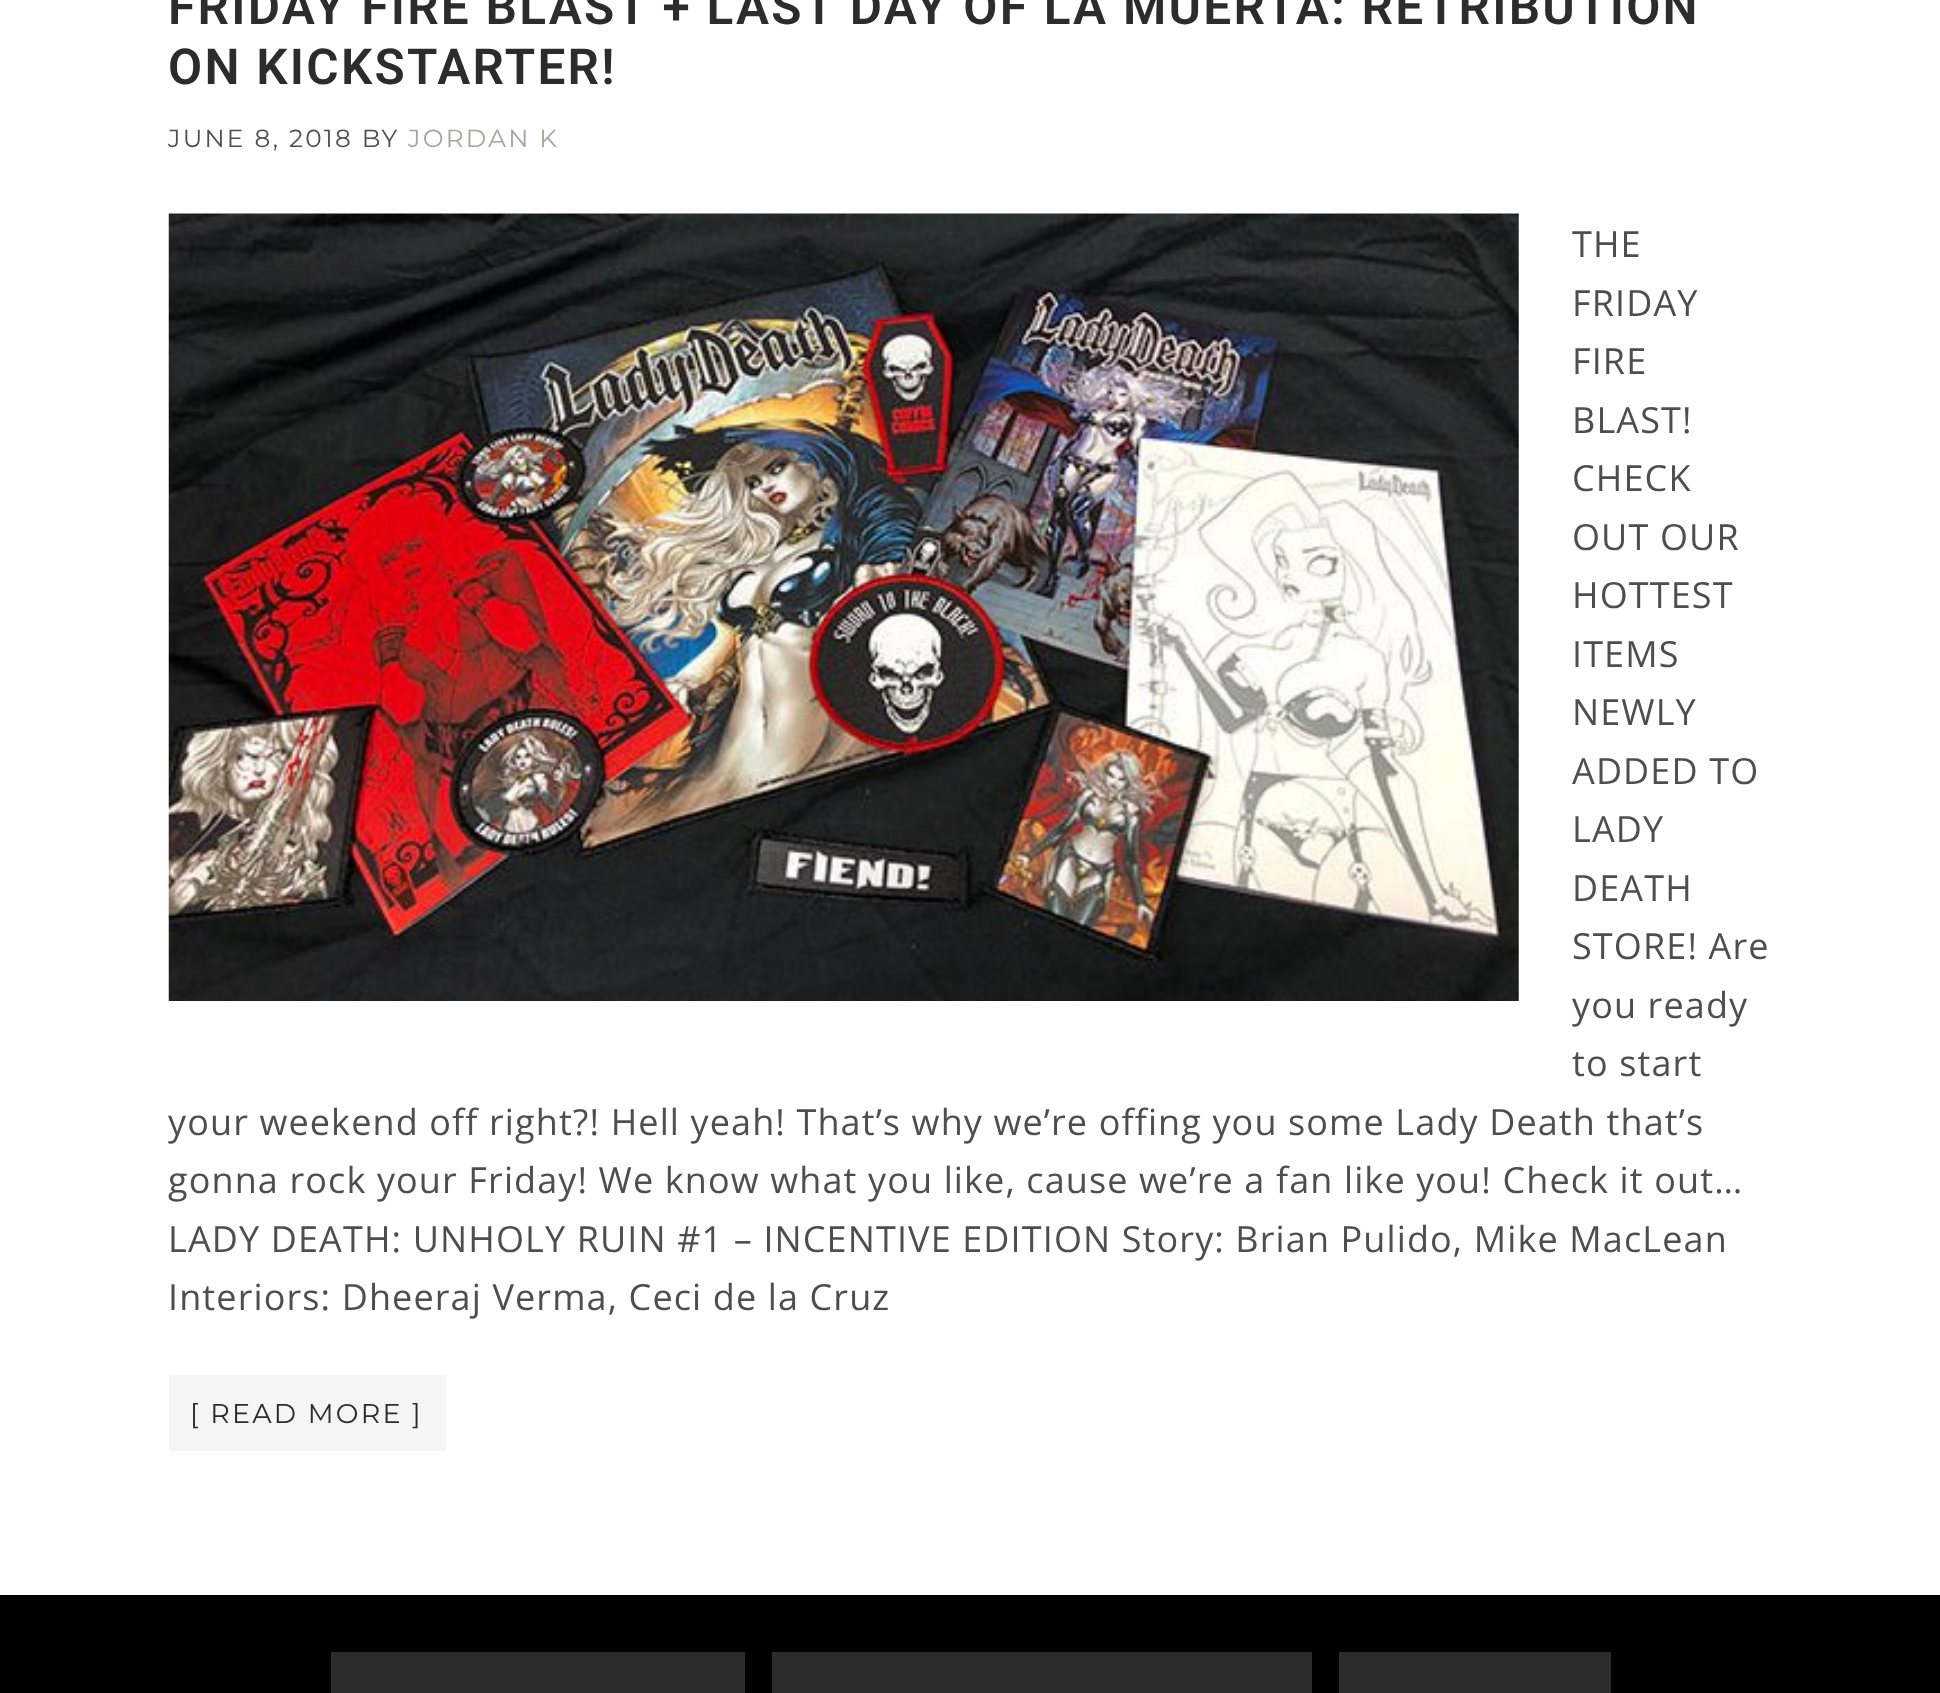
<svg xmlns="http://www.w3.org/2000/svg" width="1940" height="1693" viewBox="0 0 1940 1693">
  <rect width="100%" height="100%" fill="rgb(255,255,255)"/>
  <g font-family="Roboto" font-size="49.5" font-weight="600" letter-spacing="2.25" fill="rgb(44,44,44)">
    <text>
      <tspan x="168" y="24">FRIDAY FIRE BLAST + LAST DAY OF LA MUERTA: RETRIBUTION</tspan>
      <tspan x="168" y="84">ON KICKSTARTER!</tspan>
    </text>
  </g>
  <text x="168" y="147" font-family="Montserrat" font-size="24.75" letter-spacing="2.25" fill="rgb(78,78,78)">JUNE 8, 2018 BY</text>
  <text x="408" y="147" font-family="Montserrat" font-size="24.75" letter-spacing="2.25" fill="rgb(166,165,155)">JORDAN K</text>
  <image x="168" y="213" width="1351" height="788" href="pic1.png"/>
  <g font-family="Open Sans" font-size="36" letter-spacing="1.12" fill="rgb(78,78,78)">
    <text>
      <tspan x="1572" y="257">THE</tspan>
      <tspan x="1572" y="316">FRIDAY</tspan>
      <tspan x="1572" y="374">FIRE</tspan>
      <tspan x="1572" y="433">BLAST!</tspan>
      <tspan x="1572" y="491">CHECK</tspan>
      <tspan x="1572" y="550">OUT OUR</tspan>
      <tspan x="1572" y="608">HOTTEST</tspan>
      <tspan x="1572" y="667">ITEMS</tspan>
      <tspan x="1572" y="725">NEWLY</tspan>
      <tspan x="1572" y="784">ADDED TO</tspan>
      <tspan x="1572" y="842">LADY</tspan>
      <tspan x="1572" y="901">DEATH</tspan>
      <tspan x="1572" y="959">STORE! Are</tspan>
      <tspan x="1572" y="1018">you ready</tspan>
      <tspan x="1572" y="1076">to start</tspan>
    </text>
    <text>
      <tspan x="168" y="1135">your weekend off right?! Hell yeah! That’s why we’re offing you some Lady Death that’s</tspan>
      <tspan x="168" y="1193">gonna rock your Friday! We know what you like, cause we’re a fan like you! Check it out…</tspan>
      <tspan x="168" y="1252">LADY DEATH: UNHOLY RUIN #1 – INCENTIVE EDITION Story: Brian Pulido, Mike MacLean</tspan>
      <tspan x="168" y="1310">Interiors: Dheeraj Verma, Ceci de la Cruz</tspan>
    </text>
  </g>
  <rect x="169" y="1375" width="277" height="76" fill="rgb(245,245,245)"/>
  <text x="190" y="1423" font-family="Montserrat" font-size="27" letter-spacing="2.25" fill="rgb(44,44,44)">[ READ MORE ]</text>
  <rect x="0" y="1595" width="1940" height="98" fill="rgb(0,0,0)"/>
  <rect x="331" y="1652" width="414" height="41" fill="rgb(44,44,44)"/>
  <rect x="772" y="1652" width="540" height="41" fill="rgb(44,44,44)"/>
  <rect x="1339" y="1652" width="272" height="41" fill="rgb(44,44,44)"/>
</svg>
